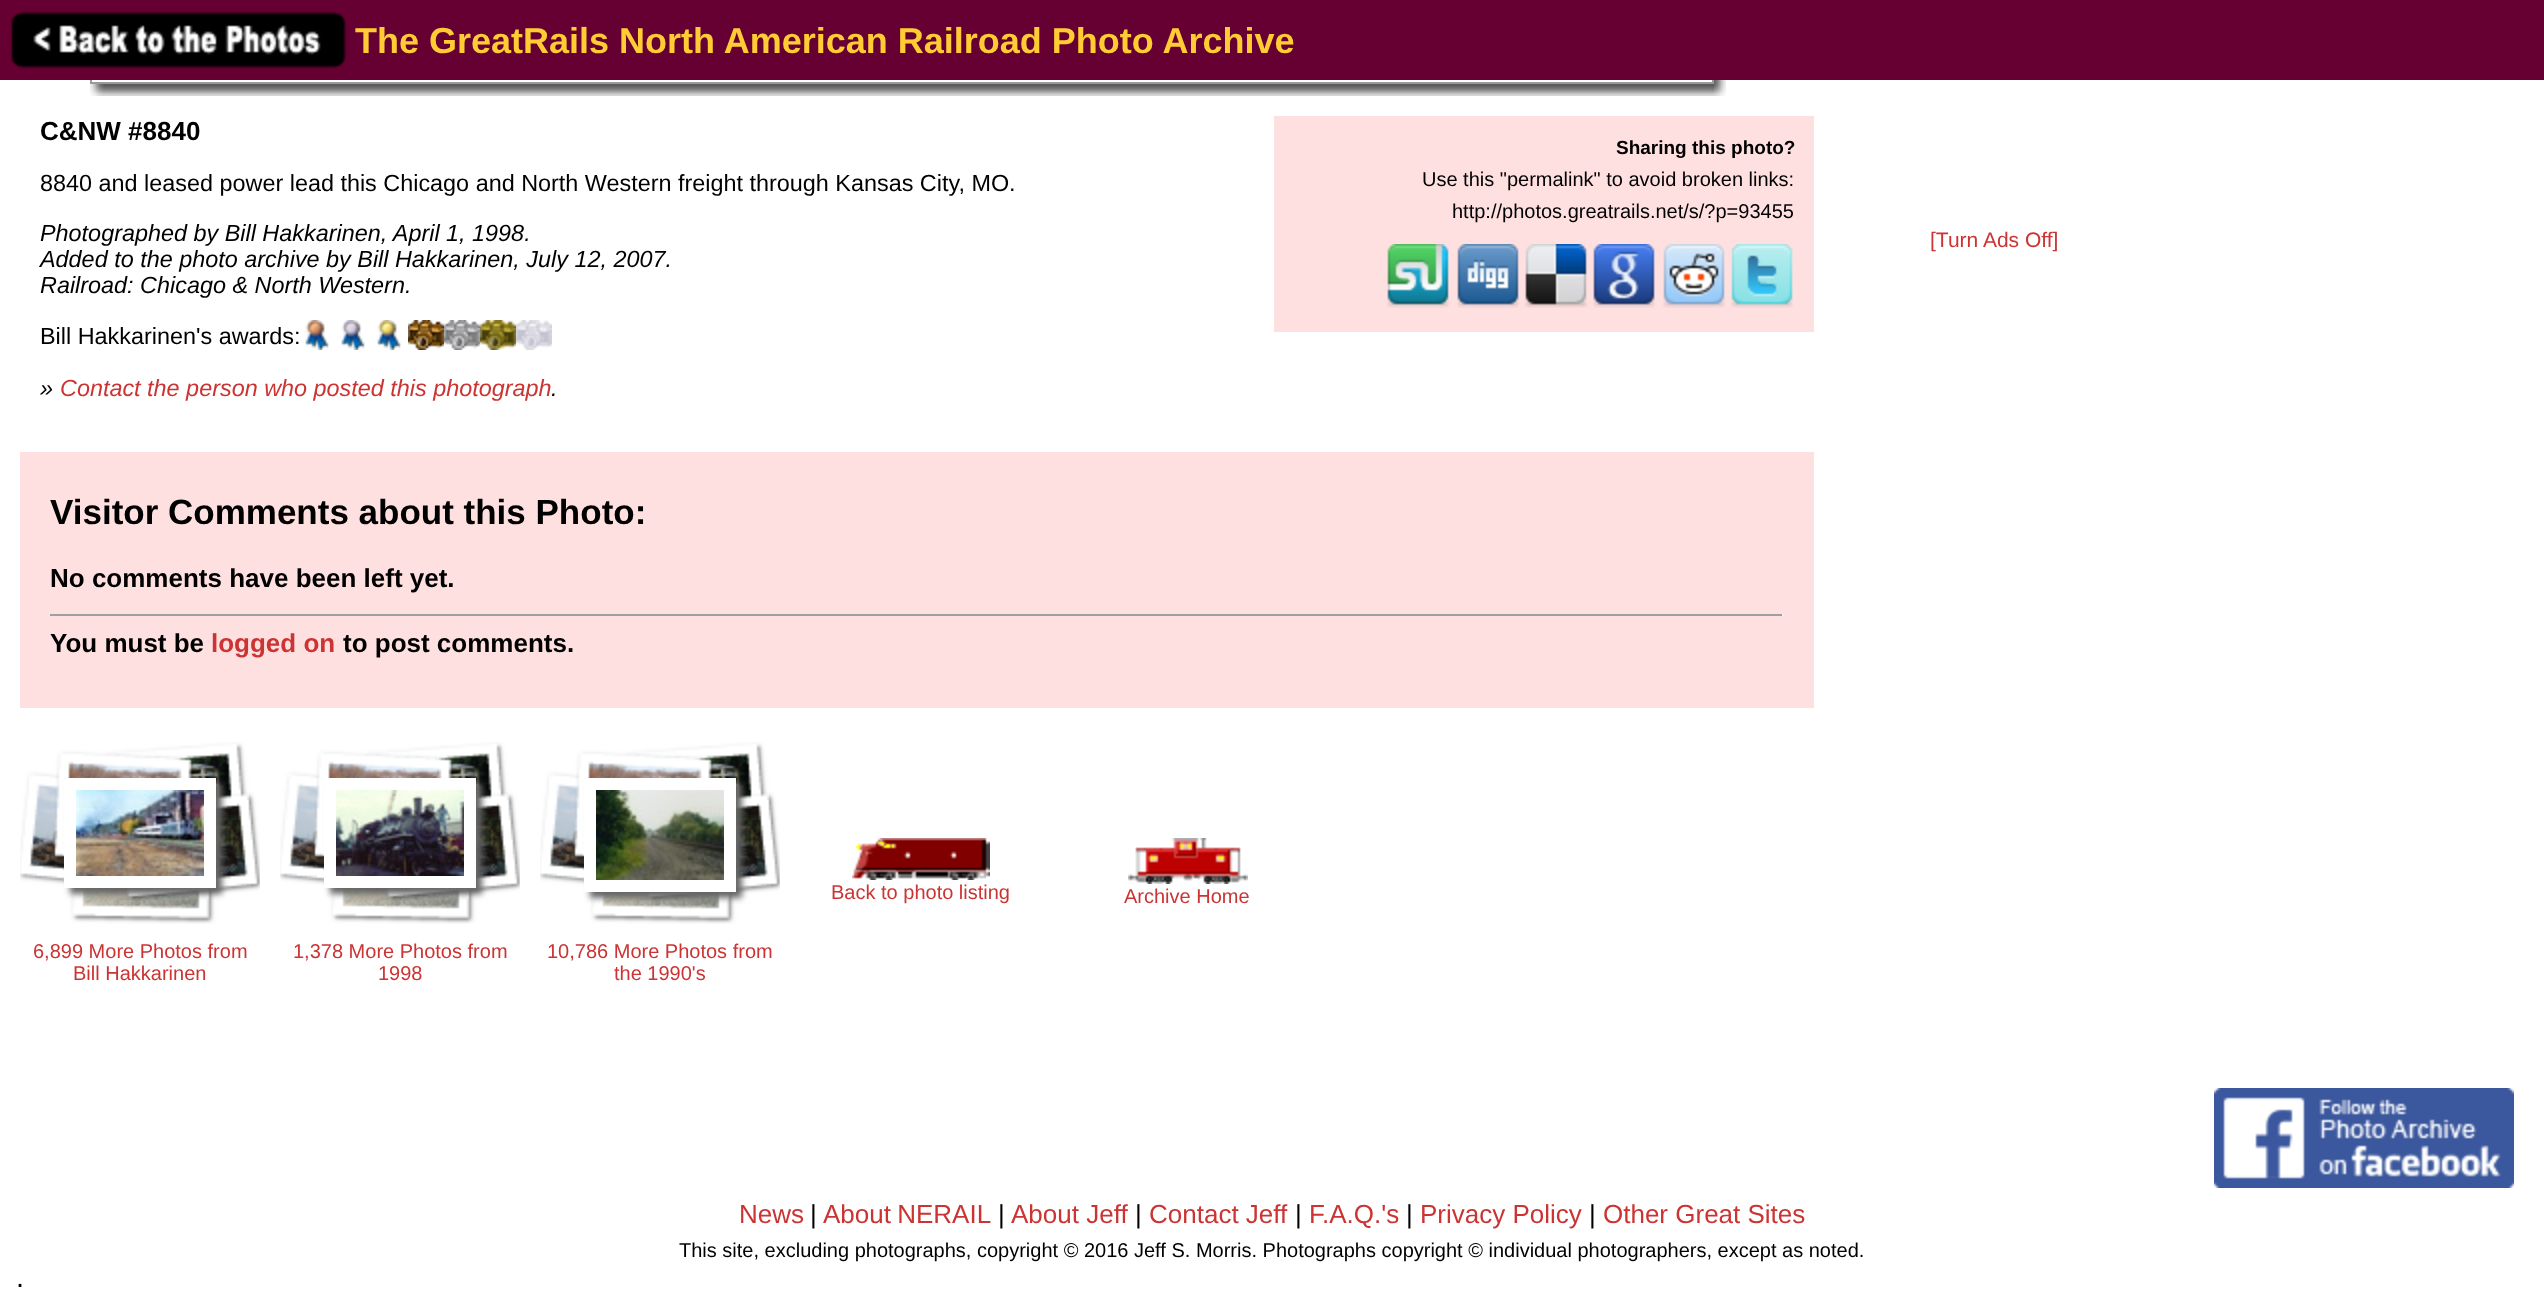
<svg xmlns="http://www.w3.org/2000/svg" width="2544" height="1292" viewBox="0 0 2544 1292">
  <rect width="100%" height="100%" fill="rgb(255,255,255)"/>
  <rect x="91" y="-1" width="1622" height="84" fill="none" stroke="rgb(154,154,154)" stroke-width="2"/>
  <rect x="0" y="0" width="2544" height="80" fill="rgb(102,0,51)"/>
  <image x="11" y="11" width="336" height="58" href="pic1.png"/>
  <text x="355" y="53" font-family="Liberation Sans" font-size="36" font-weight="bold" fill="rgb(255,204,51)">The GreatRails North American Railroad Photo Archive</text>
  <image x="1714" y="80" width="12" height="4" href="pic2.png"/>
  <image x="90" y="84" width="1624" height="12" href="pic3.png"/>
  <image x="1714" y="84" width="12" height="12" href="pic4.png"/>
  <text x="40" y="140" font-family="Liberation Sans" font-size="26" font-weight="bold" fill="rgb(0,0,0)">C&amp;NW #8840</text>
  <text x="40" y="191" font-family="Liberation Sans" font-size="23.4" fill="rgb(0,0,0)">8840 and leased power lead this Chicago and North Western freight through Kansas City, MO.</text>
  <g font-family="Liberation Sans" font-size="23.4" font-style="italic" fill="rgb(0,0,0)">
    <text>
      <tspan x="40" y="241">Photographed by Bill Hakkarinen, April 1, 1998.</tspan>
      <tspan x="40" y="267">Added to the photo archive by Bill Hakkarinen, July 12, 2007.</tspan>
      <tspan x="40" y="293">Railroad: Chicago &amp; North Western.</tspan>
    </text>
  </g>
  <text x="40" y="344" font-family="Liberation Sans" font-size="23.4" fill="rgb(0,0,0)">Bill Hakkarinen's awards:</text>
  <image x="305" y="320" width="24" height="30" href="pic5.png"/>
  <image x="341" y="320" width="24" height="30" href="pic6.png"/>
  <image x="377" y="320" width="24" height="30" href="pic7.png"/>
  <image x="408" y="320" width="36" height="30" href="pic8.png"/>
  <image x="444" y="320" width="36" height="30" href="pic9.png"/>
  <image x="480" y="320" width="36" height="30" href="pic10.png"/>
  <image x="516" y="320" width="36" height="30" href="pic11.png"/>
  <text x="40" y="396" font-family="Liberation Sans" font-size="23.4" font-style="italic" fill="rgb(0,0,0)">»</text>
  <text x="60" y="396" font-family="Liberation Sans" font-size="23.4" font-style="italic" fill="rgb(204,51,51)">Contact the person who posted this photograph</text>
  <text x="551" y="396" font-family="Liberation Sans" font-size="23.4" font-style="italic" fill="rgb(0,0,0)">.</text>
  <rect x="1274" y="116" width="540" height="216" fill="rgb(255,224,224)"/>
  <text x="1616" y="154" font-family="Liberation Sans" font-size="19" font-weight="bold" fill="rgb(0,0,0)">Sharing this photo?</text>
  <g font-family="Liberation Sans" font-size="20" fill="rgb(0,0,0)">
    <text x="1422" y="186">Use this "permalink" to avoid broken links:</text>
    <text x="1452" y="218">http://photos.greatrails.net/s/?p=93455</text>
  </g>
  <image x="1387" y="244" width="62" height="64" href="pic12.png"/>
  <image x="1457" y="244" width="62" height="64" href="pic13.png"/>
  <image x="1524" y="244" width="64" height="64" href="pic14.png"/>
  <image x="1593" y="244" width="62" height="64" href="pic15.png"/>
  <image x="1663" y="244" width="62" height="64" href="pic16.png"/>
  <image x="1731" y="244" width="62" height="64" href="pic17.png"/>
  <text x="1930" y="247" font-family="Liberation Sans" font-size="21" fill="rgb(204,51,51)">[Turn Ads Off]</text>
  <rect x="20" y="452" width="1794" height="256" fill="rgb(255,224,224)"/>
  <text x="50" y="524" font-family="Liberation Sans" font-size="35" font-weight="bold" fill="rgb(0,0,0)">Visitor Comments about this Photo:</text>
  <text x="50" y="587" font-family="Liberation Sans" font-size="26" font-weight="bold" fill="rgb(0,0,0)">No comments have been left yet.</text>
  <rect x="50" y="614" width="1734" height="2" fill="rgb(159,159,159)"/>
  <rect x="1782" y="614" width="2" height="2" fill="rgb(238,238,238)"/>
  <text x="50" y="652" font-family="Liberation Sans" font-size="26" font-weight="bold" fill="rgb(0,0,0)">You must be</text>
  <text x="211" y="652" font-family="Liberation Sans" font-size="26" font-weight="bold" fill="rgb(204,51,51)">logged on</text>
  <text x="343" y="652" font-family="Liberation Sans" font-size="26" font-weight="bold" fill="rgb(0,0,0)">to post comments.</text>
  <image x="852" y="838" width="138" height="42" href="pic18.png"/>
  <text x="831" y="899" font-family="Liberation Sans" font-size="20" fill="rgb(204,51,51)">Back to photo listing</text>
  <image x="1128" y="838" width="120" height="46" href="pic19.png"/>
  <text x="1124" y="903" font-family="Liberation Sans" font-size="20" fill="rgb(204,51,51)">Archive Home</text>
  <image x="20" y="742" width="240" height="182" href="pic20.png"/>
  <rect x="70" y="784" width="152" height="110" fill="rgb(102,102,102)" filter="blur(3px)"/>
  <rect x="64" y="778" width="152" height="110" fill="rgb(255,255,255)"/>
  <image x="76" y="790" width="128" height="86" href="pic21.png"/>
  <g font-family="Liberation Sans" font-size="20" fill="rgb(204,51,51)">
    <text x="33" y="958">6,899 More Photos from</text>
    <text x="73" y="980">Bill Hakkarinen</text>
  </g>
  <image x="280" y="742" width="240" height="182" href="pic20.png"/>
  <rect x="330" y="784" width="152" height="110" fill="rgb(102,102,102)" filter="blur(3px)"/>
  <rect x="324" y="778" width="152" height="110" fill="rgb(255,255,255)"/>
  <image x="336" y="790" width="128" height="86" href="pic22.png"/>
  <g font-family="Liberation Sans" font-size="20" fill="rgb(204,51,51)">
    <text x="293" y="958">1,378 More Photos from</text>
    <text x="378" y="980">1998</text>
  </g>
  <image x="540" y="742" width="240" height="182" href="pic20.png"/>
  <rect x="590" y="784" width="152" height="114" fill="rgb(102,102,102)" filter="blur(3px)"/>
  <rect x="584" y="778" width="152" height="114" fill="rgb(255,255,255)"/>
  <image x="596" y="790" width="128" height="90" href="pic23.png"/>
  <g font-family="Liberation Sans" font-size="20" fill="rgb(204,51,51)">
    <text x="547" y="958">10,786 More Photos from</text>
    <text x="614" y="980">the 1990's</text>
  </g>
  <image x="2214" y="1088" width="300" height="100" href="pic24.png"/>
  <text x="739" y="1223" font-family="Liberation Sans" font-size="26" fill="rgb(204,51,51)">News</text>
  <text x="810" y="1223" font-family="Liberation Sans" font-size="26" fill="rgb(0,0,0)">|</text>
  <text x="823" y="1223" word-spacing="-1" font-family="Liberation Sans" font-size="26" fill="rgb(204,51,51)">About NERAIL</text>
  <text x="998" y="1223" font-family="Liberation Sans" font-size="26" fill="rgb(0,0,0)">|</text>
  <text x="1011" y="1223" font-family="Liberation Sans" font-size="26" fill="rgb(204,51,51)">About Jeff</text>
  <text x="1135" y="1223" font-family="Liberation Sans" font-size="26" fill="rgb(0,0,0)">|</text>
  <text x="1149" y="1223" font-family="Liberation Sans" font-size="26" fill="rgb(204,51,51)">Contact Jeff</text>
  <text x="1295" y="1223" font-family="Liberation Sans" font-size="26" fill="rgb(0,0,0)">|</text>
  <text x="1309" y="1223" font-family="Liberation Sans" font-size="26" fill="rgb(204,51,51)">F.A.Q.'s</text>
  <text x="1406" y="1223" font-family="Liberation Sans" font-size="26" fill="rgb(0,0,0)">|</text>
  <text x="1420" y="1223" font-family="Liberation Sans" font-size="26" fill="rgb(204,51,51)">Privacy Policy</text>
  <text x="1589" y="1223" font-family="Liberation Sans" font-size="26" fill="rgb(0,0,0)">|</text>
  <text x="1603" y="1223" font-family="Liberation Sans" font-size="26" fill="rgb(204,51,51)">Other Great Sites</text>
  <text x="679" y="1257" font-family="Liberation Sans" font-size="20" fill="rgb(0,0,0)">This site, excluding photographs, copyright © 2016 Jeff S. Morris. Photographs copyright © individual photographers, except as noted.</text>
  <text x="16" y="1287" font-family="Liberation Sans" font-size="29" fill="rgb(0,0,0)">.</text>
</svg>
